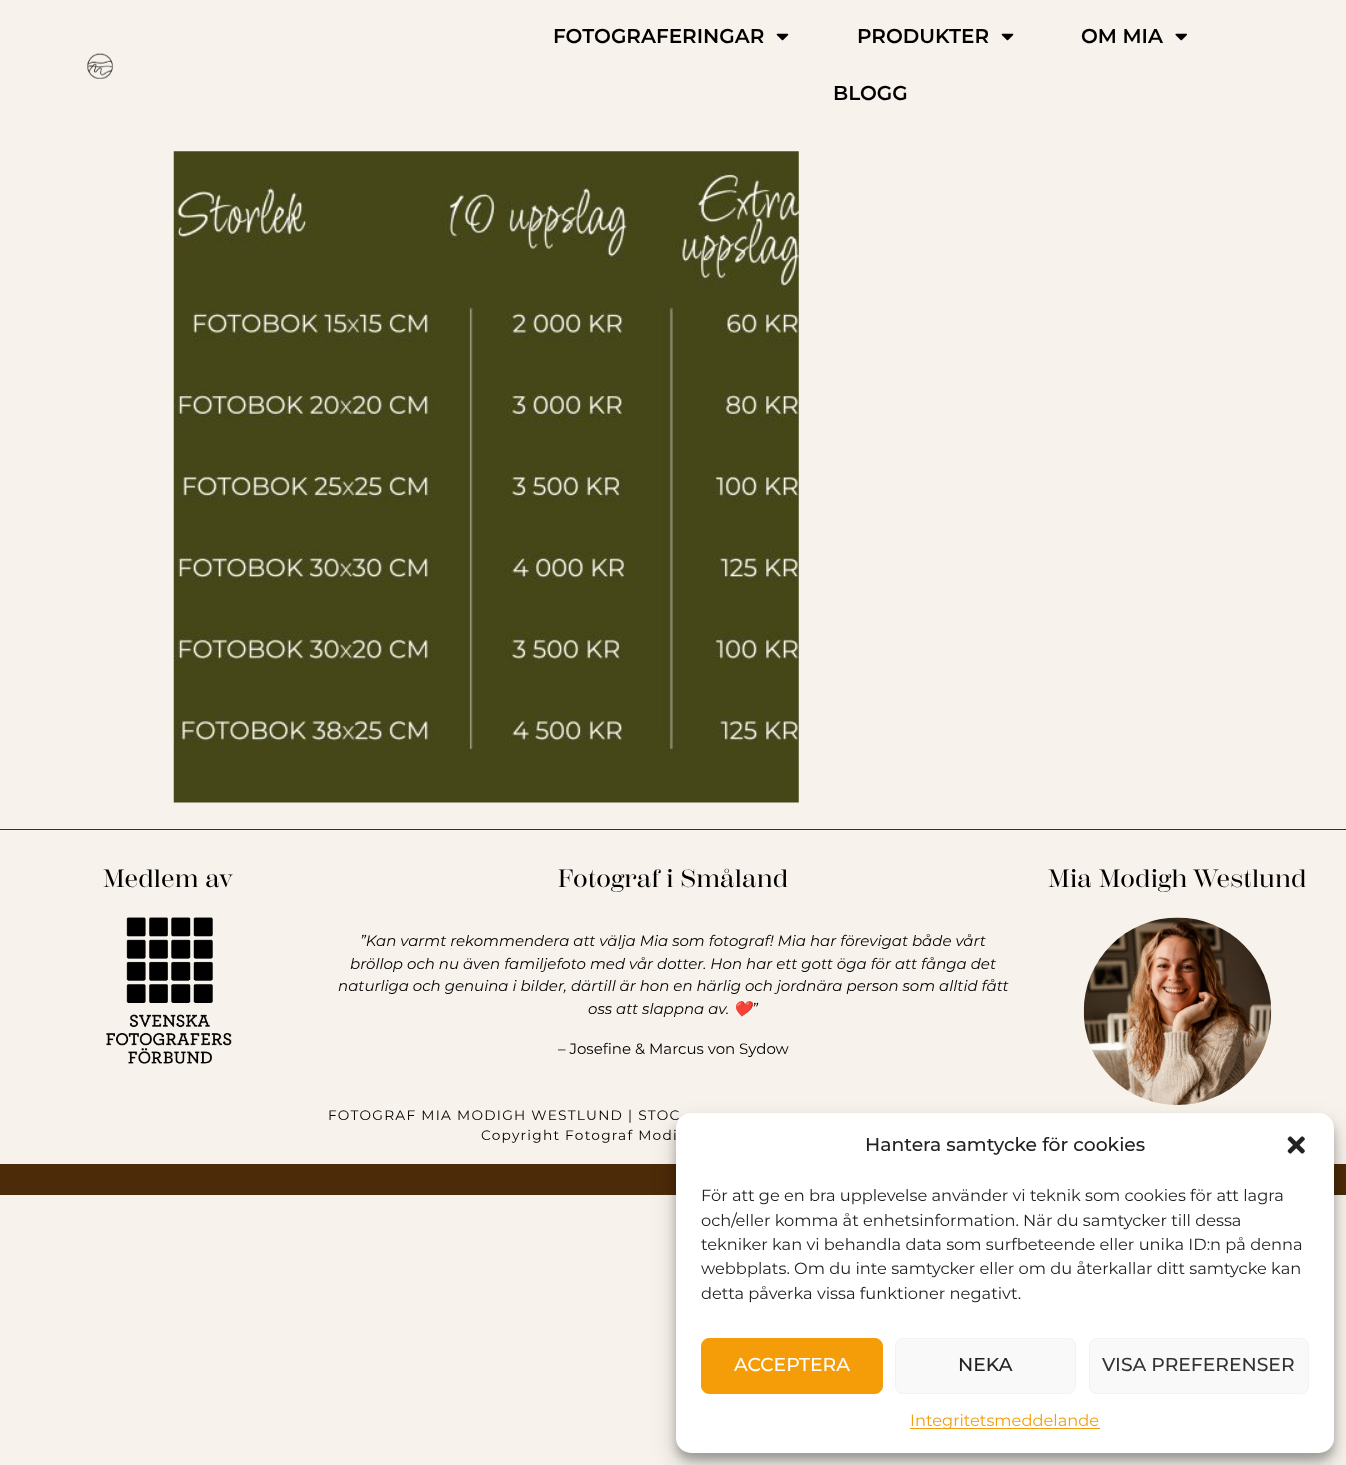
<svg xmlns="http://www.w3.org/2000/svg" width="1346" height="1465" viewBox="0 0 1346 1465">
  <rect width="100%" height="100%" fill="rgb(247,242,235)"/>
  <image x="87" y="53" width="26" height="26" href="pic1.png"/>
  <text x="553" y="43" font-family="Montserrat" font-size="20" font-weight="600" fill="rgb(0,0,0)">FOTOGRAFERINGAR</text>
  <image x="776" y="33" width="13" height="8" href="pic2.png"/>
  <text x="857" y="43" font-family="Montserrat" font-size="20" font-weight="600" fill="rgb(0,0,0)">PRODUKTER</text>
  <image x="1001" y="33" width="13" height="8" href="pic2.png"/>
  <text x="1081" y="43" font-family="Montserrat" font-size="20" font-weight="600" fill="rgb(0,0,0)">OM MIA</text>
  <image x="1175" y="33" width="12" height="8" href="pic3.png"/>
  <text x="833" y="100" font-family="Montserrat" font-size="20" font-weight="600" fill="rgb(0,0,0)">BLOGG</text>
  <image x="173" y="151" width="626" height="652" href="pic4.png"/>
  <rect x="0" y="829" width="1346" height="1" fill="rgb(76,43,8)"/>
  <text x="103" y="887" font-family="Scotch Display" font-size="25" font-weight="500" letter-spacing="0.6" fill="rgb(0,0,0)">Medlem av</text>
  <image x="106" y="917" width="126" height="147" href="pic5.png"/>
  <text x="558" y="887" font-family="Scotch Display" font-size="25" font-weight="500" letter-spacing="0.6" fill="rgb(0,0,0)">Fotograf i Småland</text>
  <g font-family="Montserrat" font-size="15" font-style="italic" fill="rgb(0,0,0)">
    <text x="360" y="946">”Kan varmt rekommendera att välja Mia som fotograf! Mia har förevigat både vårt</text>
    <text x="350" y="969">bröllop och nu även familjefoto med vår dotter. Hon har ett gott öga för att fånga det</text>
    <text x="338" y="991">naturliga och genuina i bilder, därtill är hon en härlig och jordnära person som alltid fått</text>
    <text x="588" y="1014">oss att slappna av.</text>
  </g>
  <text x="733" y="1014" font-family="Noto Color Emoji" font-size="15" font-style="italic" fill="rgb(0,0,0)">❤️</text>
  <text x="752" y="1014" font-family="Montserrat" font-size="15" font-style="italic" fill="rgb(0,0,0)">”</text>
  <text x="558" y="1054" font-family="Montserrat" font-size="15" fill="rgb(0,0,0)">– Josefine &amp; Marcus von Sydow</text>
  <text x="1048" y="887" font-family="Scotch Display" font-size="25" font-weight="500" letter-spacing="0.6" fill="rgb(0,0,0)">Mia Modigh Westlund</text>
  <image x="1083" y="917" width="189" height="188" href="pic6.png"/>
  <g font-family="Montserrat" font-size="13.75" letter-spacing="1.25" fill="rgb(0,0,0)">
    <text x="328" y="1120">FOTOGRAF MIA MODIGH WESTLUND | STOC</text>
    <text x="481" y="1140">Copyright Fotograf Modi</text>
  </g>
  <rect x="0" y="1164" width="1346" height="31" fill="rgb(76,43,8)"/>
  <rect x="676" y="1120" width="658" height="340" rx="15" fill="rgba(0,0,0,0.23)" filter="blur(4px)"/>
  <rect x="676" y="1125" width="658" height="340" rx="15" fill="rgba(0,0,0,0.19)" filter="blur(12.5px)"/>
  <rect x="676" y="1113" width="658" height="340" rx="15" fill="rgb(255,255,255)"/>
  <text x="865" y="1151" font-family="Montserrat" font-size="18.75" font-weight="500" fill="rgb(34,34,34)">Hantera samtycke för cookies</text>
  <image x="1287" y="1136" width="18" height="18" href="pic7.png"/>
  <g font-family="Montserrat" font-size="16.25" fill="rgb(34,34,34)">
    <text>
      <tspan x="701" y="1201">För att ge en bra upplevelse använder vi teknik som cookies för att lagra</tspan>
      <tspan x="701" y="1226">och/eller komma åt enhetsinformation. När du samtycker till dessa</tspan>
      <tspan x="701" y="1250">tekniker kan vi behandla data som surfbeteende eller unika ID:n på denna</tspan>
      <tspan x="701" y="1274">webbplats. Om du inte samtycker eller om du återkallar ditt samtycke kan</tspan>
      <tspan x="701" y="1299">detta påverka vissa funktioner negativt.</tspan>
    </text>
  </g>
  <rect x="701.5" y="1338.5" width="181" height="55" rx="7.5" fill="rgb(244,157,9)" stroke="rgb(244,157,9)"/>
  <text x="734" y="1371" font-family="Montserrat" font-size="18.75" font-weight="500" fill="rgb(255,255,255)">ACCEPTERA</text>
  <rect x="895.5" y="1338.5" width="180" height="55" rx="7.5" fill="rgb(249,249,249)" stroke="rgb(242,242,242)"/>
  <text x="958" y="1371" font-family="Montserrat" font-size="18.75" font-weight="500" fill="rgb(34,34,34)">NEKA</text>
  <rect x="1089.5" y="1338.5" width="219" height="55" rx="7.5" fill="rgb(249,249,249)" stroke="rgb(242,242,242)"/>
  <text x="1102" y="1371" font-family="Montserrat" font-size="18.75" font-weight="500" fill="rgb(51,51,51)">VISA PREFERENSER</text>
  <rect x="910" y="1428" width="190" height="1" fill="rgb(244,157,9)"/>
  <text x="910" y="1426" font-family="Montserrat" font-size="16.25" fill="rgb(244,157,9)">Integritetsmeddelande</text>
</svg>
